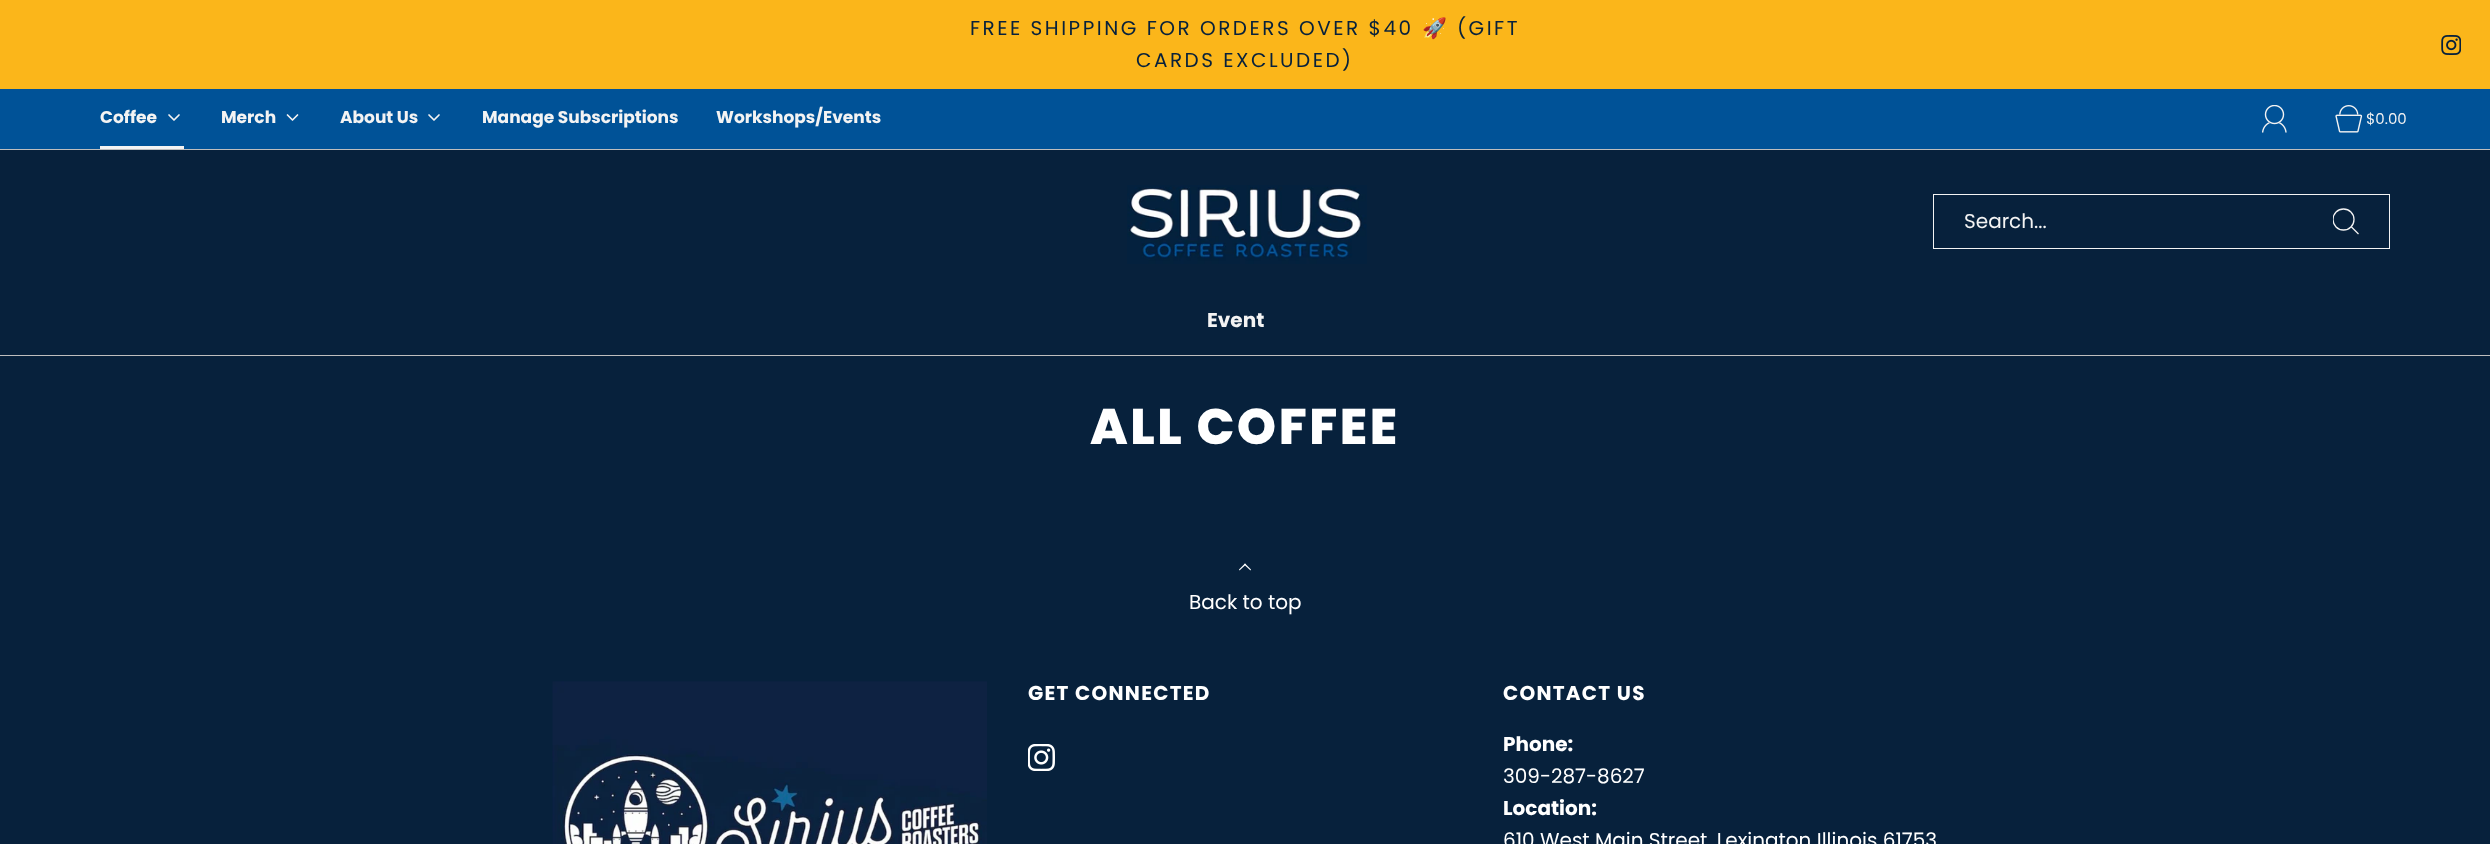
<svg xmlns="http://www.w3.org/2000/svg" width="2490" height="844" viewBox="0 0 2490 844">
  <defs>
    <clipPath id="clip1"><rect x="2333" y="208" width="27" height="27"/></clipPath>
  </defs>
  <rect width="100%" height="100%" fill="rgb(7,33,60)"/>
  <rect x="0" y="0" width="2490" height="89" fill="rgb(251,182,26)"/>
  <text x="970" y="35" font-family="Poppins" font-size="20" letter-spacing="2.5" fill="rgb(7,33,60)">FREE SHIPPING FOR ORDERS OVER $40</text>
  <text x="1422" y="35" font-family="Noto Color Emoji" font-size="20" letter-spacing="2.5" fill="rgb(7,33,60)">🚀</text>
  <g font-family="Poppins" font-size="20" letter-spacing="2.5" fill="rgb(7,33,60)">
    <text x="1457" y="35">(GIFT</text>
    <text x="1136" y="67">CARDS EXCLUDED)</text>
  </g>
  <image x="2441" y="35" width="20" height="20" href="pic1.png"/>
  <rect x="0" y="355" width="2490" height="1" fill="rgb(190,190,190)"/>
  <rect x="0" y="89" width="2490" height="60" fill="rgb(0,82,151)"/>
  <rect x="0" y="149" width="2490" height="1" fill="rgb(190,190,190)"/>
  <rect x="100" y="146" width="84" height="3" fill="rgb(243,243,243)"/>
  <text x="100" y="123" font-family="Poppins" font-size="17" font-weight="bold" fill="rgb(243,243,243)">Coffee</text>
  <path d="M169 115L174 120L179 115" fill="none" stroke="rgb(243,243,243)" stroke-width="1.7" stroke-linecap="round" stroke-linejoin="round"/>
  <text x="221" y="123" font-family="Poppins" font-size="17" font-weight="bold" fill="rgb(243,243,243)">Merch</text>
  <path d="M287.5 115L292.5 120L297.5 115" fill="none" stroke="rgb(243,243,243)" stroke-width="1.7" stroke-linecap="round" stroke-linejoin="round"/>
  <text x="340" y="123" font-family="Poppins" font-size="17" font-weight="bold" fill="rgb(243,243,243)">About Us</text>
  <path d="M429 115L434 120L439 115" fill="none" stroke="rgb(243,243,243)" stroke-width="1.7" stroke-linecap="round" stroke-linejoin="round"/>
  <g font-family="Poppins" font-size="17" font-weight="bold" fill="rgb(243,243,243)">
    <text x="482" y="123">Manage Subscriptions</text>
    <text x="716" y="123">Workshops/Events</text>
  </g>
  <image x="2262" y="105" width="25" height="28" href="pic2.png"/>
  <image x="2335" y="105" width="28" height="28" href="pic3.png"/>
  <text x="2366" y="124" font-family="Poppins" font-size="15" fill="rgb(243,243,243)">$0.00</text>
  <image x="1127" y="185" width="240" height="79" href="pic4.png"/>
  <rect x="1933.5" y="194.5" width="456" height="54" fill="none" stroke="rgb(243,243,243)"/>
  <text x="1964" y="228" font-family="Poppins" font-size="20" fill="rgb(243,243,243)">Search...</text>
  <g clip-path="url(#clip1)">
    <circle cx="2343.5" cy="219.5" r="10.5" fill="none" stroke="rgb(243,243,243)" stroke-width="1.3"/>
  </g>
  <path d="M2351 226.5L2358.5 234" fill="none" stroke="rgb(243,243,243)" stroke-width="1.3"/>
  <text x="1207" y="327" font-family="Poppins" font-size="20" font-weight="bold" fill="rgb(243,243,243)">Event</text>
  <text x="1090" y="444" font-family="Poppins" font-size="50" font-weight="800" letter-spacing="2.5" fill="rgb(255,255,255)">ALL COFFEE</text>
  <path d="M1239.5 570.5L1239 569.5L1245 563.5L1246 564.5Z" fill="rgb(255,255,255)"/>
  <path d="M1250.5 570.5L1244 564.5L1245 563.5L1251 569.5Z" fill="rgb(255,255,255)"/>
  <text x="1189" y="609" font-family="Poppins" font-size="20" fill="rgb(255,255,255)">Back to top</text>
  <image x="552" y="681" width="435" height="163" href="pic5.png"/>
  <text x="1028" y="700" font-family="Poppins" font-size="20" font-weight="bold" letter-spacing="1.25" fill="rgb(255,255,255)">GET CONNECTED</text>
  <image x="1028" y="744" width="27" height="27" href="pic6.png"/>
  <text x="1503" y="700" font-family="Poppins" font-size="20" font-weight="bold" letter-spacing="1.25" fill="rgb(255,255,255)">CONTACT US</text>
  <text x="1503" y="751" font-family="Poppins" font-size="20" font-weight="bold" fill="rgb(255,255,255)">Phone:</text>
  <text x="1503" y="783" font-family="Poppins" font-size="20" fill="rgb(255,255,255)">309-287-8627</text>
  <text x="1503" y="815" font-family="Poppins" font-size="20" font-weight="bold" fill="rgb(255,255,255)">Location:</text>
  <text x="1503" y="847" font-family="Poppins" font-size="20" fill="rgb(255,255,255)">610 West Main Street, Lexington Illinois 61753</text>
</svg>
